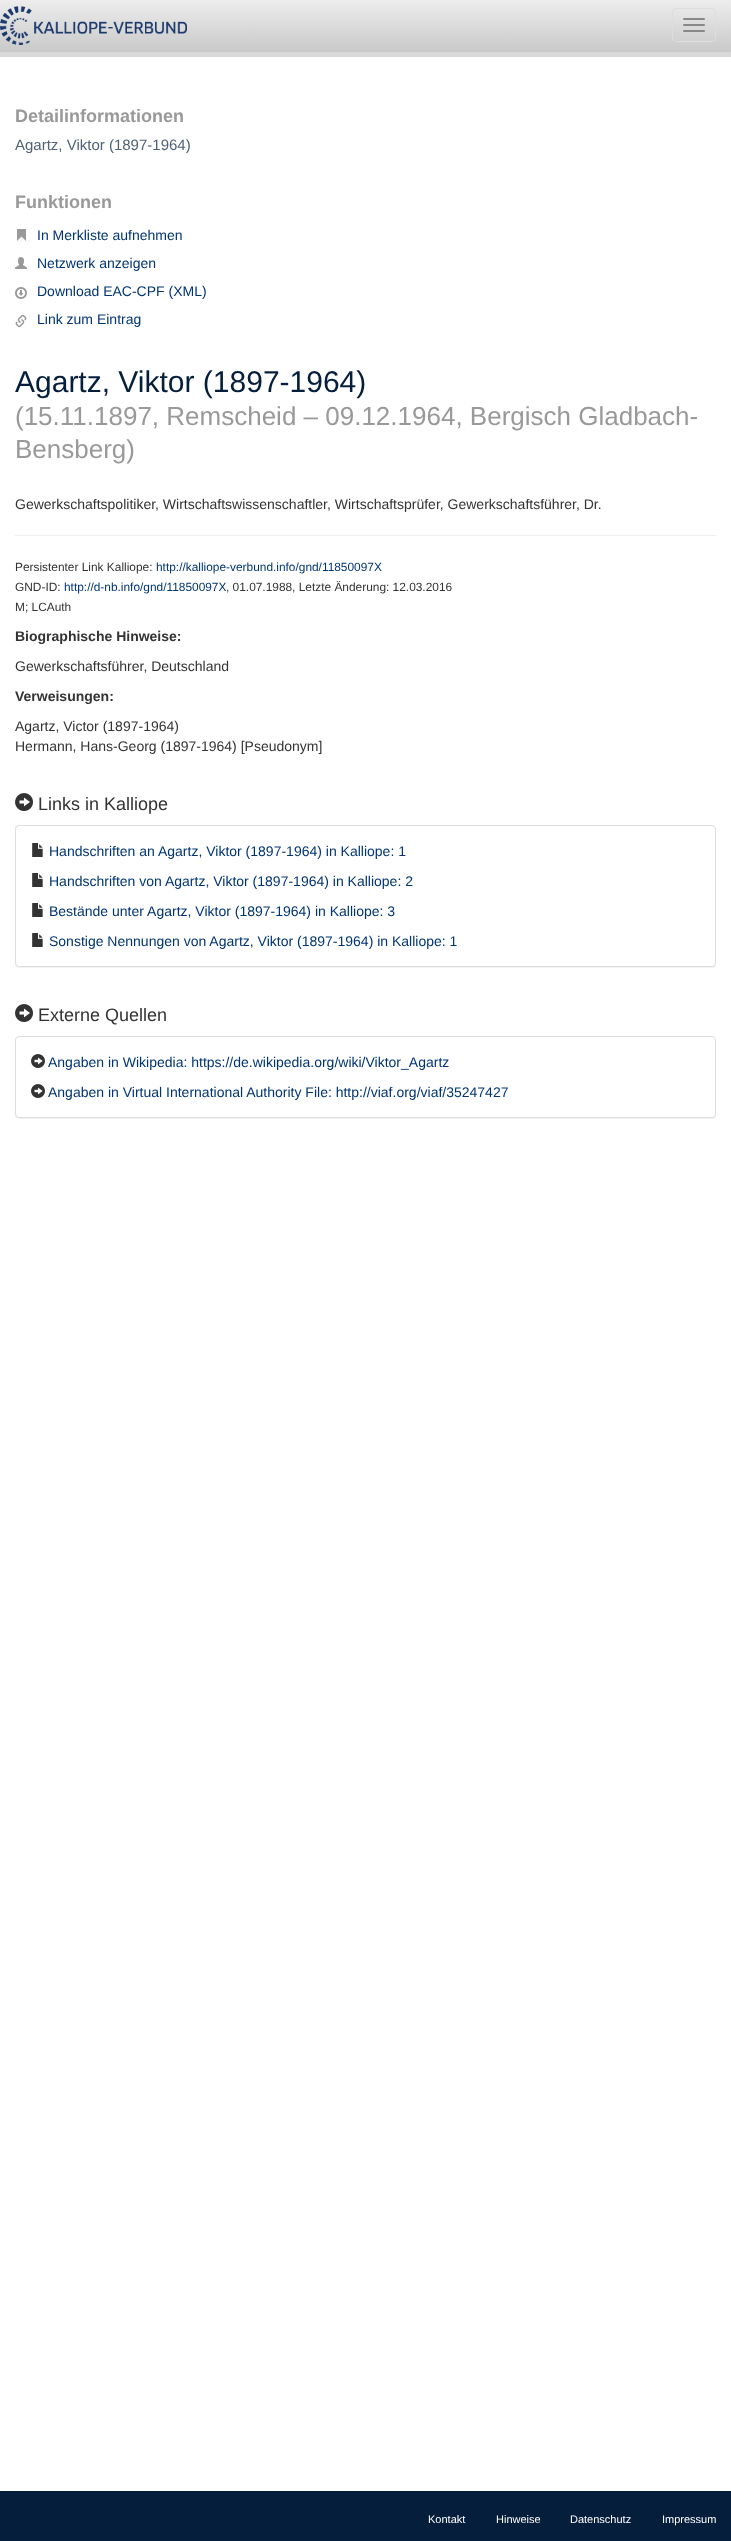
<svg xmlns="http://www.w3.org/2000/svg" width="731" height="2541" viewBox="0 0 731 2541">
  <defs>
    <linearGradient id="g1" gradientUnits="userSpaceOnUse" x1="366" y1="0" x2="366" y2="52"><stop offset="0" stop-color="rgb(237,237,237)"/><stop offset="1" stop-color="rgb(201,201,201)"/></linearGradient>
  </defs>
  <rect width="100%" height="100%" fill="rgb(255,255,255)"/>
  <rect x="0" y="0" width="731" height="52" fill="url(#g1)"/>
  <rect x="0" y="52" width="731" height="5" fill="rgb(217,217,217)"/>
  <image x="0" y="6" width="187" height="39" href="pic1.png"/>
  <rect x="672.5" y="8.5" width="43" height="33" rx="3.5" fill="none" stroke="rgb(221,221,221)"/>
  <rect x="683" y="18" width="22" height="2" rx="1" fill="rgb(136,136,136)"/>
  <rect x="683" y="24" width="22" height="2" rx="1" fill="rgb(136,136,136)"/>
  <rect x="683" y="30" width="22" height="2" rx="1" fill="rgb(136,136,136)"/>
  <text x="15" y="122" font-family="Liberation Sans" font-size="18" font-weight="bold" fill="rgb(153,153,153)">Detailinformationen</text>
  <text x="15" y="150" font-family="Liberation Sans" font-size="15" fill="rgb(80,98,119)">Agartz, Viktor (1897-1964)</text>
  <text x="15" y="208" font-family="Liberation Sans" font-size="18" font-weight="bold" fill="rgb(153,153,153)">Funktionen</text>
  <image x="17" y="229" width="9" height="12" href="pic2.png"/>
  <text x="37" y="240" font-family="Liberation Sans" font-size="14" fill="rgb(0,53,116)">In Merkliste aufnehmen</text>
  <image x="15" y="257" width="12" height="12" href="pic3.png"/>
  <text x="37" y="268" font-family="Liberation Sans" font-size="14" fill="rgb(0,53,116)">Netzwerk anzeigen</text>
  <image x="15" y="287" width="12" height="12" href="pic4.png"/>
  <text x="37" y="296" font-family="Liberation Sans" font-size="14" fill="rgb(0,53,116)">Download EAC-CPF (XML)</text>
  <image x="15" y="314" width="12" height="14" href="pic5.png"/>
  <text x="37" y="324" font-family="Liberation Sans" font-size="14" fill="rgb(0,53,116)">Link zum Eintrag</text>
  <text x="15" y="392" font-family="Liberation Sans" font-size="30" fill="rgb(5,30,60)">Agartz, Viktor (1897-1964)</text>
  <g font-family="Liberation Sans" font-size="26" fill="rgb(153,153,153)">
    <text>
      <tspan x="15" y="425">(15.11.1897, Remscheid – 09.12.1964, Bergisch Gladbach-</tspan>
      <tspan x="15" y="458">Bensberg)</tspan>
    </text>
  </g>
  <text x="15" y="509" font-family="Liberation Sans" font-size="14" fill="rgb(51,51,51)">Gewerkschaftspolitiker, Wirtschaftswissenschaftler, Wirtschaftsprüfer, Gewerkschaftsführer, Dr.</text>
  <rect x="15" y="535" width="701" height="1" fill="rgb(238,238,238)"/>
  <text x="15" y="571" font-family="Liberation Sans" font-size="11.9" fill="rgb(51,51,51)">Persistenter Link Kalliope:</text>
  <text x="156" y="571" font-family="Liberation Sans" font-size="11.9" fill="rgb(0,53,116)">http://kalliope-verbund.info/gnd/11850097X</text>
  <text x="15" y="591" font-family="Liberation Sans" font-size="11.9" fill="rgb(51,51,51)">GND-ID:</text>
  <text x="64" y="591" font-family="Liberation Sans" font-size="11.9" fill="rgb(0,53,116)">http://d-nb.info/gnd/11850097X</text>
  <g font-family="Liberation Sans" font-size="11.9" fill="rgb(51,51,51)">
    <text x="226" y="591">, 01.07.1988, Letzte Änderung: 12.03.2016</text>
    <text x="15" y="611">M; LCAuth</text>
  </g>
  <text x="15" y="641" font-family="Liberation Sans" font-size="14" font-weight="bold" fill="rgb(51,51,51)">Biographische Hinweise:</text>
  <text x="15" y="671" font-family="Liberation Sans" font-size="14" fill="rgb(51,51,51)">Gewerkschaftsführer, Deutschland</text>
  <text x="15" y="701" font-family="Liberation Sans" font-size="14" font-weight="bold" fill="rgb(51,51,51)">Verweisungen:</text>
  <g font-family="Liberation Sans" font-size="14" fill="rgb(51,51,51)">
    <text>
      <tspan x="15" y="731">Agartz, Victor (1897-1964)</tspan>
      <tspan x="15" y="751">Hermann, Hans-Georg (1897-1964) [Pseudonym]</tspan>
    </text>
  </g>
  <image x="15" y="793" width="18" height="18" href="pic6.png"/>
  <text x="38" y="810" font-family="Liberation Sans" font-size="18" fill="rgb(51,51,51)">Links in Kalliope</text>
  <rect x="15" y="826" width="701" height="142" rx="4" fill="rgba(0,0,0,0.05)" filter="blur(0.5px)"/>
  <rect x="15.5" y="825.5" width="700" height="141" rx="3.5" fill="rgb(255,255,255)" stroke="rgb(221,221,221)"/>
  <image x="32" y="843" width="11" height="14" href="pic7.png"/>
  <text x="49" y="856" font-family="Liberation Sans" font-size="14" fill="rgb(0,53,116)">Handschriften an Agartz, Viktor (1897-1964) in Kalliope: 1</text>
  <image x="32" y="873" width="11" height="14" href="pic7.png"/>
  <text x="49" y="886" font-family="Liberation Sans" font-size="14" fill="rgb(0,53,116)">Handschriften von Agartz, Viktor (1897-1964) in Kalliope: 2</text>
  <image x="32" y="903" width="11" height="14" href="pic7.png"/>
  <text x="49" y="916" font-family="Liberation Sans" font-size="14" fill="rgb(0,53,116)">Bestände unter Agartz, Viktor (1897-1964) in Kalliope: 3</text>
  <image x="32" y="933" width="11" height="14" href="pic7.png"/>
  <text x="49" y="946" font-family="Liberation Sans" font-size="14" fill="rgb(0,53,116)">Sonstige Nennungen von Agartz, Viktor (1897-1964) in Kalliope: 1</text>
  <image x="15" y="1004" width="18" height="18" href="pic6.png"/>
  <text x="38" y="1021" font-family="Liberation Sans" font-size="18" fill="rgb(51,51,51)">Externe Quellen</text>
  <rect x="15" y="1037" width="701" height="82" rx="4" fill="rgba(0,0,0,0.05)" filter="blur(0.5px)"/>
  <rect x="15.5" y="1036.5" width="700" height="81" rx="3.5" fill="rgb(255,255,255)" stroke="rgb(221,221,221)"/>
  <image x="31" y="1054" width="14" height="14" href="pic8.png"/>
  <text x="48" y="1067" font-family="Liberation Sans" font-size="14" fill="rgb(0,53,116)">Angaben in Wikipedia: https://de.wikipedia.org/wiki/Viktor_Agartz</text>
  <image x="31" y="1084" width="14" height="14" href="pic8.png"/>
  <text x="48" y="1097" font-family="Liberation Sans" font-size="14" fill="rgb(0,53,116)">Angaben in Virtual International Authority File: http://viaf.org/viaf/35247427</text>
  <rect x="0" y="2491" width="731" height="50" fill="rgb(5,30,60)"/>
  <g font-family="Liberation Sans" font-size="11" fill="rgb(255,255,255)">
    <text x="428" y="2523">Kontakt</text>
    <text x="496" y="2523">Hinweise</text>
    <text x="570" y="2523">Datenschutz</text>
    <text x="662" y="2523">Impressum</text>
  </g>
</svg>
